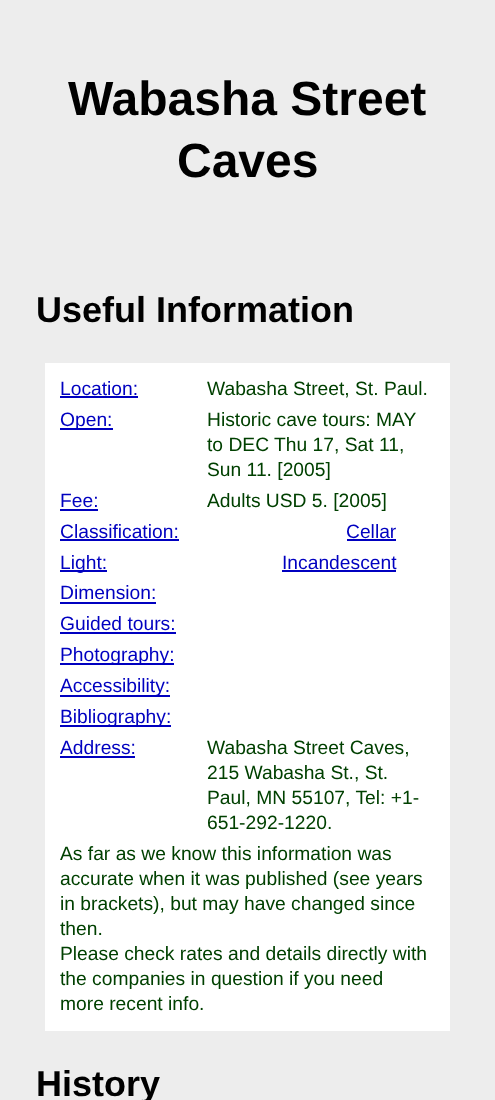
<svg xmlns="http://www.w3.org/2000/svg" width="495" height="1100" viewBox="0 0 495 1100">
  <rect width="100%" height="100%" fill="rgb(237,237,237)"/>
  <g font-family="Liberation Sans" font-size="48" font-weight="bold" fill="rgb(0,0,0)">
    <text x="68" y="115">Wabasha Street</text>
    <text x="177" y="177">Caves</text>
  </g>
  <text x="36" y="322" font-family="Liberation Sans" font-size="36" font-weight="bold" fill="rgb(0,0,0)">Useful Information</text>
  <rect x="45" y="363" width="405" height="668" fill="rgb(255,255,255)"/>
  <text x="60" y="395" font-family="Liberation Sans" font-size="19.25" fill="rgb(0,0,192)">Location:</text>
  <rect x="60" y="396" width="78" height="2" fill="rgb(0,0,192)"/>
  <text x="207" y="395" font-family="Liberation Sans" font-size="19.25" fill="rgb(0,64,0)">Wabasha Street, St. Paul.</text>
  <rect x="60" y="428" width="53" height="2" fill="rgb(0,0,192)"/>
  <text x="60" y="426" font-family="Liberation Sans" font-size="19.25" fill="rgb(0,0,192)">Open:</text>
  <g font-family="Liberation Sans" font-size="19.25" fill="rgb(0,64,0)">
    <text>
      <tspan x="207" y="426">Historic cave tours: MAY</tspan>
      <tspan x="207" y="451">to DEC Thu 17, Sat 11,</tspan>
      <tspan x="207" y="476">Sun 11. [2005]</tspan>
    </text>
  </g>
  <text x="60" y="507" font-family="Liberation Sans" font-size="19.25" fill="rgb(0,0,192)">Fee:</text>
  <rect x="60" y="509" width="38" height="2" fill="rgb(0,0,192)"/>
  <text x="207" y="507" font-family="Liberation Sans" font-size="19.25" fill="rgb(0,64,0)">Adults USD 5. [2005]</text>
  <text x="60" y="538" font-family="Liberation Sans" font-size="19.25" fill="rgb(0,0,192)">Classification:</text>
  <rect x="60" y="539" width="119" height="2" fill="rgb(0,0,192)"/>
  <text x="346" y="538" font-family="Liberation Sans" font-size="19.25" fill="rgb(0,0,192)">Cellar</text>
  <rect x="347" y="539" width="49" height="2" fill="rgb(0,0,192)"/>
  <rect x="60" y="570" width="47" height="2" fill="rgb(0,0,192)"/>
  <g font-family="Liberation Sans" font-size="19.25" fill="rgb(0,0,192)">
    <text x="60" y="569">Light:</text>
    <text x="282" y="569">Incandescent</text>
  </g>
  <rect x="282" y="570" width="114" height="2" fill="rgb(0,0,192)"/>
  <text x="60" y="599" font-family="Liberation Sans" font-size="19.25" fill="rgb(0,0,192)">Dimension:</text>
  <rect x="60" y="602" width="96" height="2" fill="rgb(0,0,192)"/>
  <text x="60" y="630" font-family="Liberation Sans" font-size="19.25" fill="rgb(0,0,192)">Guided tours:</text>
  <rect x="60" y="632" width="116" height="2" fill="rgb(0,0,192)"/>
  <rect x="60" y="663" width="114" height="2" fill="rgb(0,0,192)"/>
  <text x="60" y="661" font-family="Liberation Sans" font-size="19.25" fill="rgb(0,0,192)">Photography:</text>
  <rect x="60" y="695" width="110" height="2" fill="rgb(0,0,192)"/>
  <text x="60" y="692" font-family="Liberation Sans" font-size="19.25" fill="rgb(0,0,192)">Accessibility:</text>
  <rect x="60" y="725" width="111" height="2" fill="rgb(0,0,192)"/>
  <g font-family="Liberation Sans" font-size="19.25" fill="rgb(0,0,192)">
    <text>
      <tspan x="60" y="723">Bibliography:</tspan>
      <tspan x="60" y="754">Address:</tspan>
    </text>
  </g>
  <rect x="60" y="756" width="75" height="2" fill="rgb(0,0,192)"/>
  <g font-family="Liberation Sans" font-size="19.25" fill="rgb(0,64,0)">
    <text>
      <tspan x="207" y="754">Wabasha Street Caves,</tspan>
      <tspan x="207" y="779">215 Wabasha St., St.</tspan>
      <tspan x="207" y="804">Paul, MN 55107, Tel: +1-</tspan>
      <tspan x="207" y="829">651-292-1220.</tspan>
    </text>
    <text>
      <tspan x="60" y="860">As far as we know this information was</tspan>
      <tspan x="60" y="885">accurate when it was published (see years</tspan>
      <tspan x="60" y="910">in brackets), but may have changed since</tspan>
      <tspan x="60" y="935">then.</tspan>
      <tspan x="60" y="960">Please check rates and details directly with</tspan>
      <tspan x="60" y="985">the companies in question if you need</tspan>
      <tspan x="60" y="1010">more recent info.</tspan>
    </text>
  </g>
  <text x="36" y="1096" font-family="Liberation Sans" font-size="36" font-weight="bold" fill="rgb(0,0,0)">History</text>
</svg>
